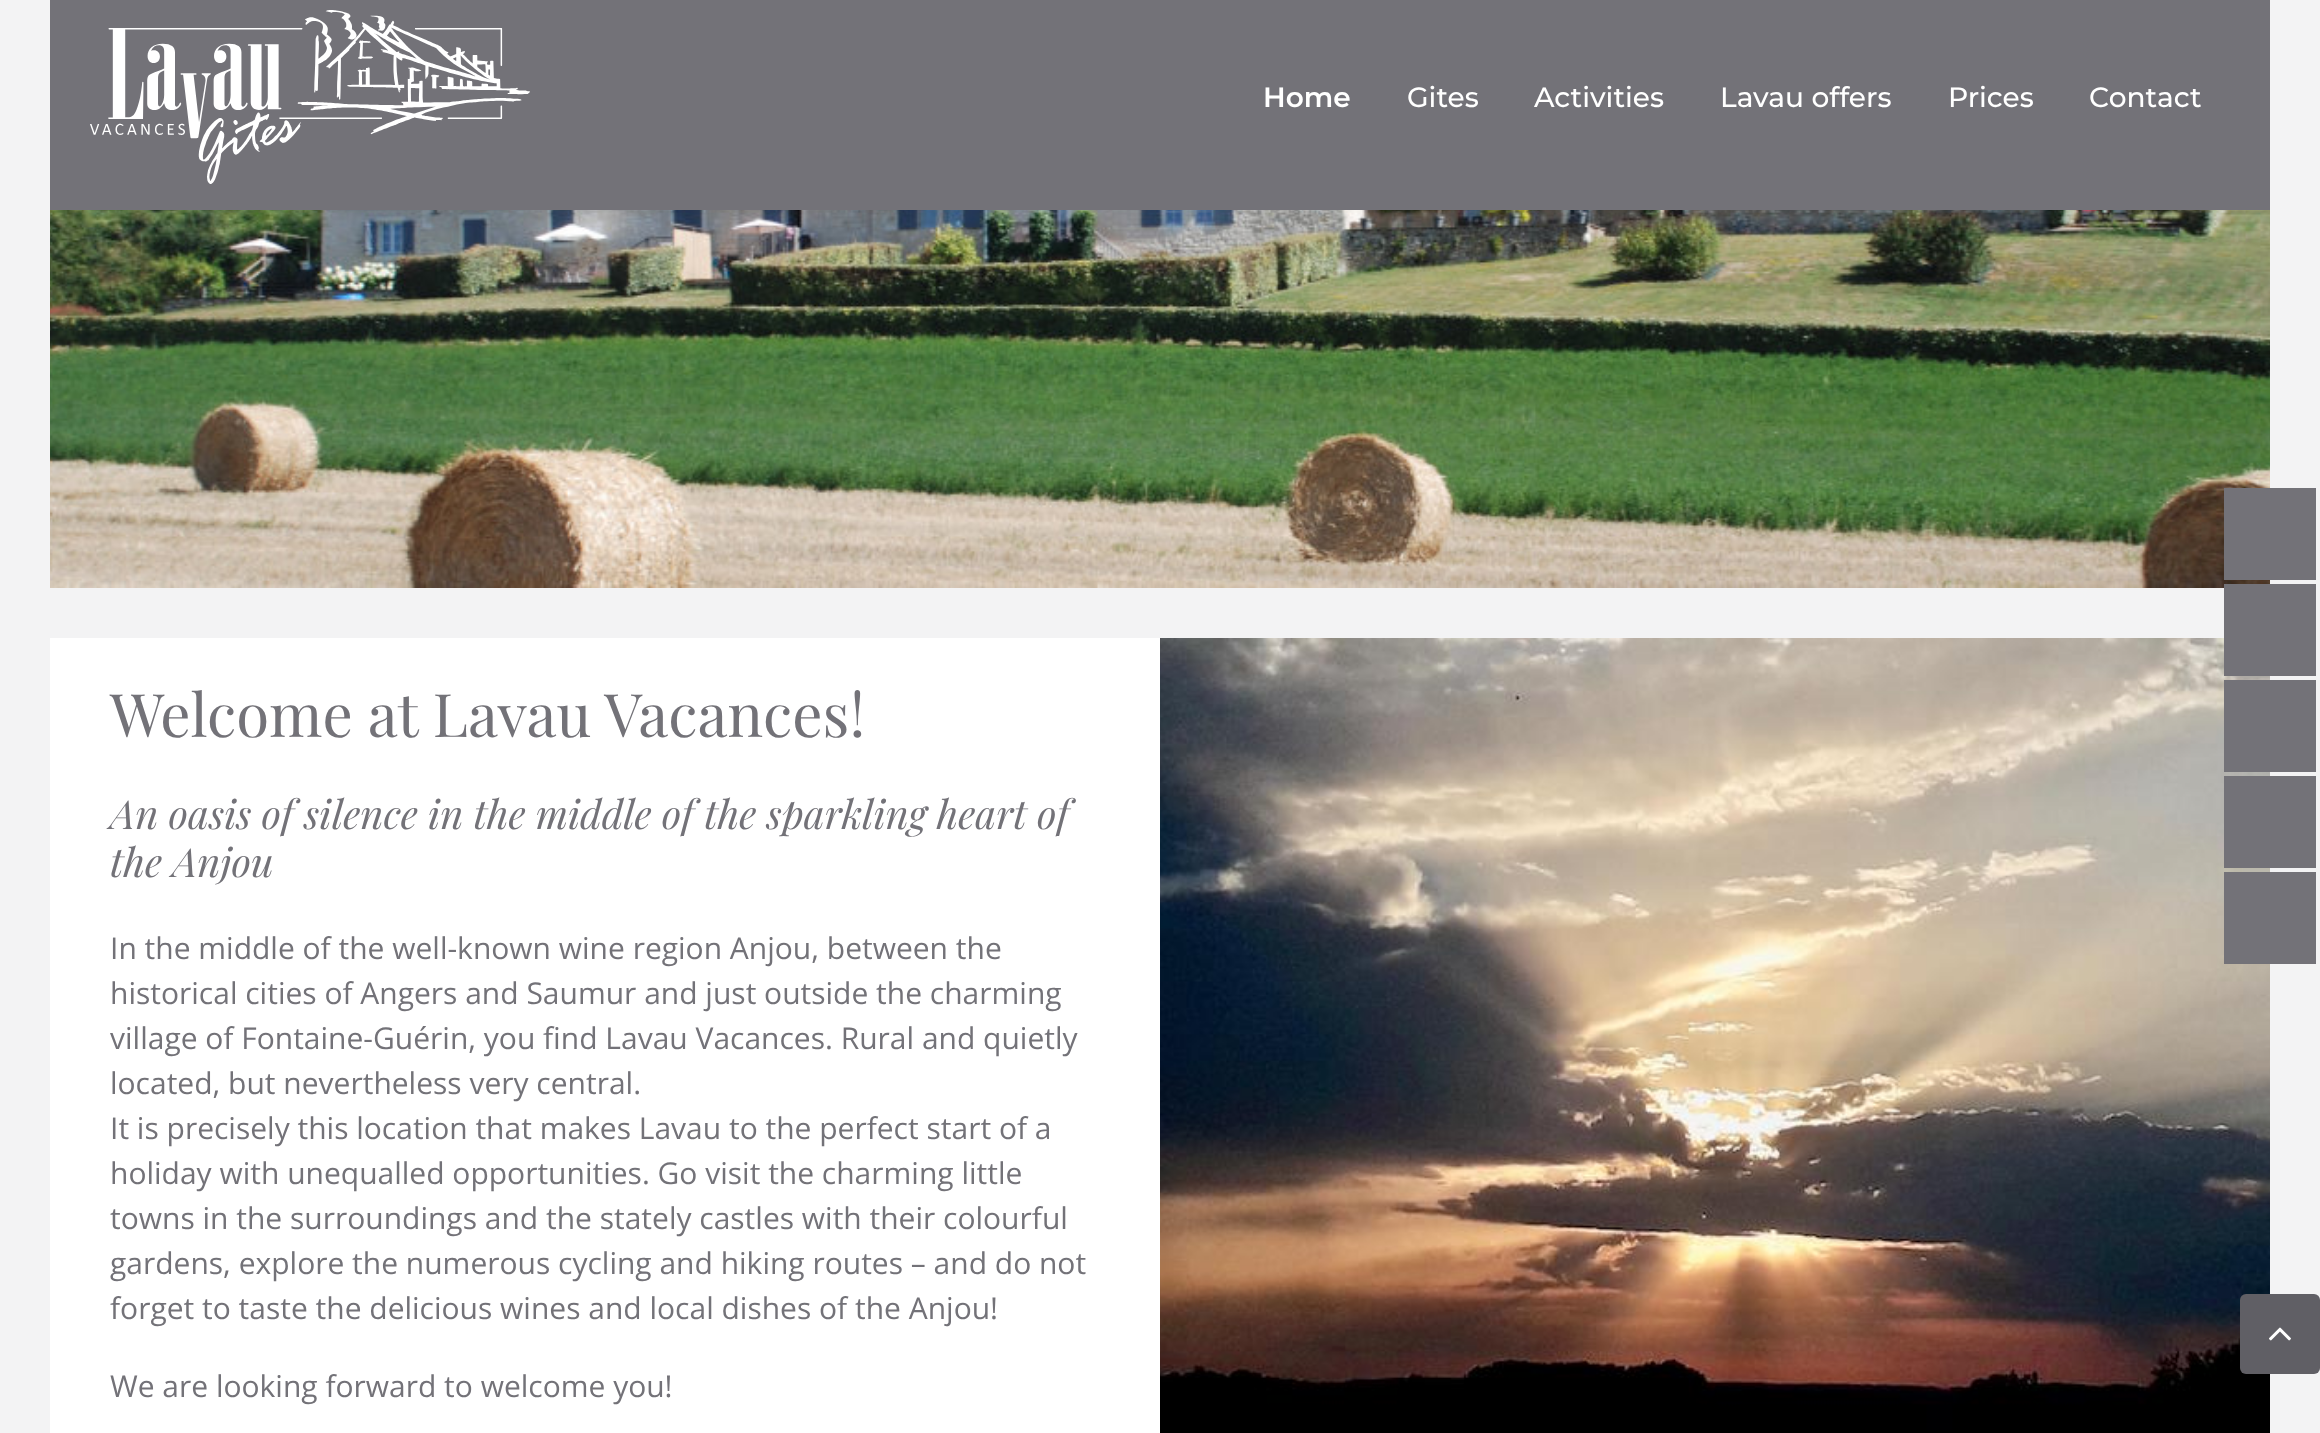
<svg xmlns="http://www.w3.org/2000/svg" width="2320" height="1433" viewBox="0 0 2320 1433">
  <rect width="100%" height="100%" fill="rgb(243,243,244)"/>
  <rect x="50" y="0" width="2220" height="210" fill="rgb(115,114,120)"/>
  <image x="90" y="10" width="440" height="174" href="pic1.png"/>
  <text x="1263" y="107" font-family="Montserrat" font-size="28" font-weight="600" fill="rgb(255,255,255)">Home</text>
  <g font-family="Montserrat" font-size="28" font-weight="500" fill="rgb(255,255,255)">
    <text x="1407" y="107">Gites</text>
    <text x="1534" y="107">Activities</text>
    <text x="1720" y="107">Lavau offers</text>
    <text x="1948" y="107">Prices</text>
    <text x="2089" y="107">Contact</text>
  </g>
  <image x="50" y="210" width="2220" height="378" href="pic2.png"/>
  <rect x="50" y="638" width="1110" height="795" fill="rgb(255,255,255)"/>
  <text x="110" y="737" font-family="Playfair Display" font-size="60" fill="rgb(115,114,120)">Welcome at Lavau Vacances!</text>
  <g font-family="Playfair Display" font-size="40" font-style="italic" fill="rgb(115,114,120)">
    <text>
      <tspan x="110" y="829">An oasis of silence in the middle of the sparkling heart of</tspan>
      <tspan x="110" y="877">the Anjou</tspan>
    </text>
  </g>
  <g font-family="Open Sans" font-size="30" fill="rgb(115,114,120)">
    <text>
      <tspan x="110" y="959">In the middle of the well-known wine region Anjou, between the</tspan>
      <tspan x="110" y="1004">historical cities of Angers and Saumur and just outside the charming</tspan>
      <tspan x="110" y="1049">village of Fontaine-Guérin, you find Lavau Vacances. Rural and quietly</tspan>
      <tspan x="110" y="1094">located, but nevertheless very central.</tspan>
      <tspan x="110" y="1139">It is precisely this location that makes Lavau to the perfect start of a</tspan>
      <tspan x="110" y="1184">holiday with unequalled opportunities. Go visit the charming little</tspan>
      <tspan x="110" y="1229">towns in the surroundings and the stately castles with their colourful</tspan>
      <tspan x="110" y="1274">gardens, explore the numerous cycling and hiking routes – and do not</tspan>
      <tspan x="110" y="1319">forget to taste the delicious wines and local dishes of the Anjou!</tspan>
    </text>
    <text x="110" y="1397">We are looking forward to welcome you!</text>
  </g>
  <image x="1160" y="638" width="1110" height="795" href="pic3.png"/>
  <rect x="2224" y="488" width="92" height="92" fill="rgb(115,114,120)"/>
  <rect x="2224" y="584" width="92" height="92" fill="rgb(115,114,120)"/>
  <rect x="2224" y="680" width="92" height="92" fill="rgb(115,114,120)"/>
  <rect x="2224" y="776" width="92" height="92" fill="rgb(115,114,120)"/>
  <rect x="2224" y="872" width="92" height="92" fill="rgb(115,114,120)"/>
  <rect x="2240" y="1294" width="80" height="80" rx="6" fill="rgb(96,95,101)"/>
  <image x="2269" y="1327" width="22" height="14" href="pic4.png"/>
</svg>
